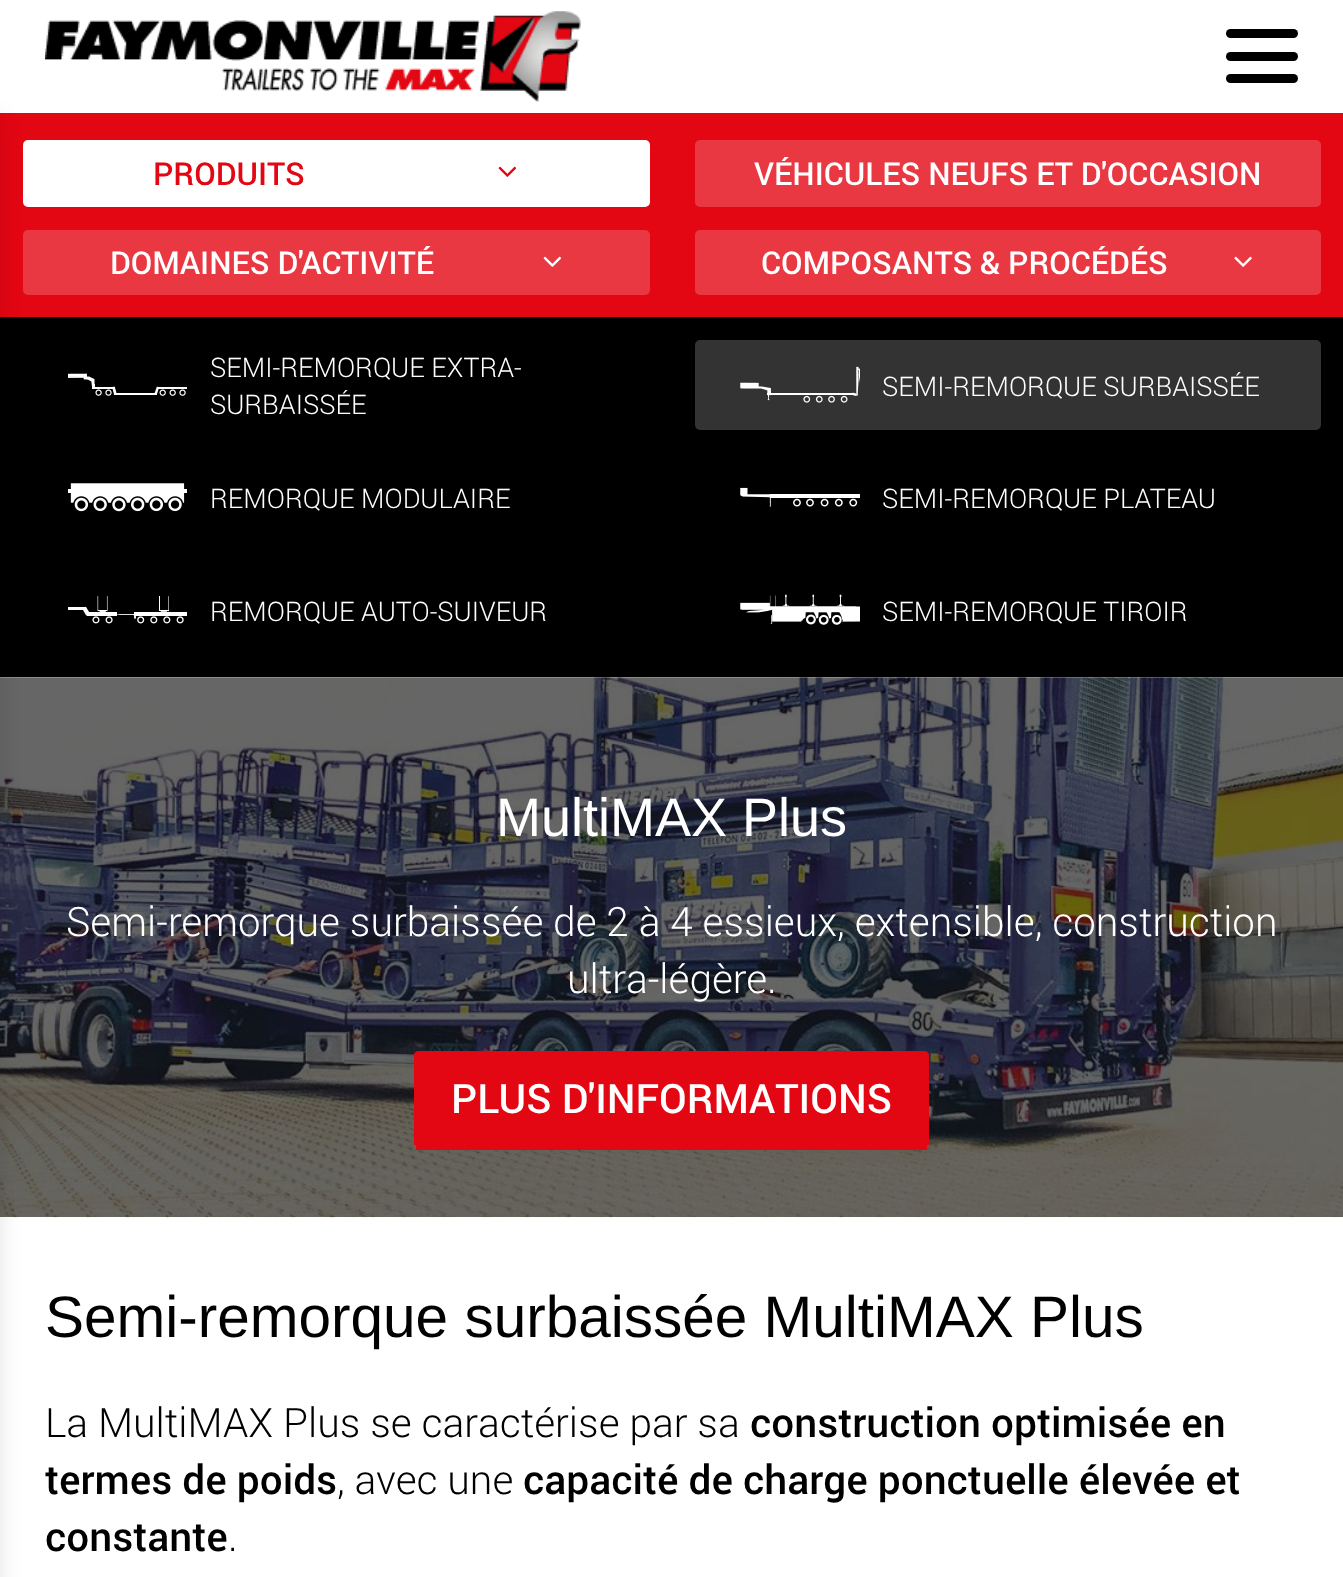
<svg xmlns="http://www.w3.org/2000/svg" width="1343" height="1577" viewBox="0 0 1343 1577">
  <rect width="100%" height="100%" fill="rgb(255,255,255)"/>
  <image x="45" y="11" width="536" height="91" href="pic1.png"/>
  <rect x="1226" y="29" width="72" height="9" rx="4.5" fill="rgb(0,0,0)"/>
  <rect x="1226" y="52" width="72" height="9" rx="4.5" fill="rgb(0,0,0)"/>
  <rect x="1226" y="74" width="72" height="9" rx="4.5" fill="rgb(0,0,0)"/>
  <rect x="0" y="113" width="1343" height="204" fill="rgb(227,6,19)"/>
  <rect x="23" y="140" width="627" height="67" rx="5" fill="rgb(255,255,255)"/>
  <rect x="23" y="230" width="627" height="65" rx="5" fill="rgb(233,56,66)"/>
  <rect x="0" y="317" width="1343" height="360" fill="rgb(0,0,0)"/>
  <image x="0" y="677" width="1343" height="541" href="pic11.png"/>
  <rect x="-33" y="117" width="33" height="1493" fill="rgba(0,0,0,0.1)" filter="blur(11px)"/>
  <text x="153" y="185" font-family="Roboto" font-size="31.5" font-weight="500" fill="rgb(227,6,19)">PRODUITS</text>
  <image x="498" y="166" width="19" height="11" href="pic2.png"/>
  <rect x="695" y="140" width="626" height="67" rx="5" fill="rgb(233,56,66)"/>
  <g font-family="Roboto" font-size="31.5" font-weight="500" fill="rgb(255,255,255)">
    <text x="754" y="185">VÉHICULES NEUFS ET D'OCCASION</text>
    <text x="110" y="274">DOMAINES D'ACTIVITÉ</text>
  </g>
  <image x="543" y="256" width="19" height="11" href="pic3.png"/>
  <rect x="695" y="230" width="626" height="65" rx="5" fill="rgb(233,56,66)"/>
  <text x="761" y="274" font-family="Roboto" font-size="31.5" font-weight="500" fill="rgb(255,255,255)">COMPOSANTS &amp; PROCÉDÉS</text>
  <image x="1234" y="256" width="18" height="11" href="pic4.png"/>
  <image x="68" y="373" width="119" height="23" href="pic5.png"/>
  <g font-family="Roboto" font-size="27" font-weight="300" fill="rgb(255,255,255)">
    <text>
      <tspan x="210" y="377">SEMI-REMORQUE EXTRA-</tspan>
      <tspan x="210" y="414">SURBAISSÉE</tspan>
    </text>
  </g>
  <rect x="695" y="340" width="626" height="90" rx="5" fill="rgb(51,51,51)"/>
  <image x="740" y="366" width="120" height="37" href="pic6.png"/>
  <text x="882" y="396" font-family="Roboto" font-size="27" font-weight="300" fill="rgb(255,255,255)">SEMI-REMORQUE SURBAISSÉE</text>
  <image x="68" y="483" width="119" height="29" href="pic7.png"/>
  <text x="210" y="508" font-family="Roboto" font-size="27" font-weight="300" fill="rgb(255,255,255)">REMORQUE MODULAIRE</text>
  <image x="740" y="487" width="120" height="20" href="pic8.png"/>
  <text x="882" y="508" font-family="Roboto" font-size="27" font-weight="300" fill="rgb(255,255,255)">SEMI-REMORQUE PLATEAU</text>
  <image x="68" y="596" width="119" height="28" href="pic9.png"/>
  <text x="210" y="621" font-family="Roboto" font-size="27" font-weight="300" fill="rgb(255,255,255)">REMORQUE AUTO-SUIVEUR</text>
  <image x="740" y="594" width="120" height="31" href="pic10.png"/>
  <text x="882" y="621" font-family="Roboto" font-size="27" font-weight="300" fill="rgb(255,255,255)">SEMI-REMORQUE TIROIR</text>
  <text x="496" y="836" font-family="Liberation Sans" font-size="54" fill="rgb(255,255,255)">MultiMAX Plus</text>
  <g font-family="Roboto" font-size="40.5" font-weight="300" fill="rgb(255,255,255)">
    <text x="66" y="936">Semi-remorque surbaissée de 2 à 4 essieux, extensible, construction</text>
    <text x="567" y="993">ultra-légère.</text>
  </g>
  <path d="M418 1051H925C927 1051 929 1053 929 1055V1145H414V1055C414 1053 416 1051 418 1051Z" fill="rgb(227,6,19)"/>
  <rect x="416" y="1145" width="511" height="5" fill="rgb(227,6,19)"/>
  <text x="451" y="1113" font-family="Roboto" font-size="40.5" font-weight="500" fill="rgb(255,255,255)">PLUS D'INFORMATIONS</text>
  <text x="45" y="1337" font-family="Liberation Sans" font-size="58.5" fill="rgb(0,0,0)">Semi-remorque surbaissée MultiMAX Plus</text>
  <text x="45" y="1437" font-family="Roboto" font-size="40.5" font-weight="300" fill="rgb(0,0,0)">La MultiMAX Plus se caractérise par sa</text>
  <g font-family="Roboto" font-size="40.5" font-weight="500" fill="rgb(0,0,0)">
    <text x="750" y="1437">construction optimisée en</text>
    <text x="45" y="1494">termes de poids</text>
  </g>
  <text x="337" y="1494" font-family="Roboto" font-size="40.5" font-weight="300" fill="rgb(0,0,0)">, avec une</text>
  <g font-family="Roboto" font-size="40.5" font-weight="500" fill="rgb(0,0,0)">
    <text x="523" y="1494">capacité de charge ponctuelle élevée et</text>
    <text x="45" y="1551">constante</text>
  </g>
  <text x="228" y="1551" font-family="Roboto" font-size="40.5" font-weight="300" fill="rgb(0,0,0)">.</text>
</svg>
